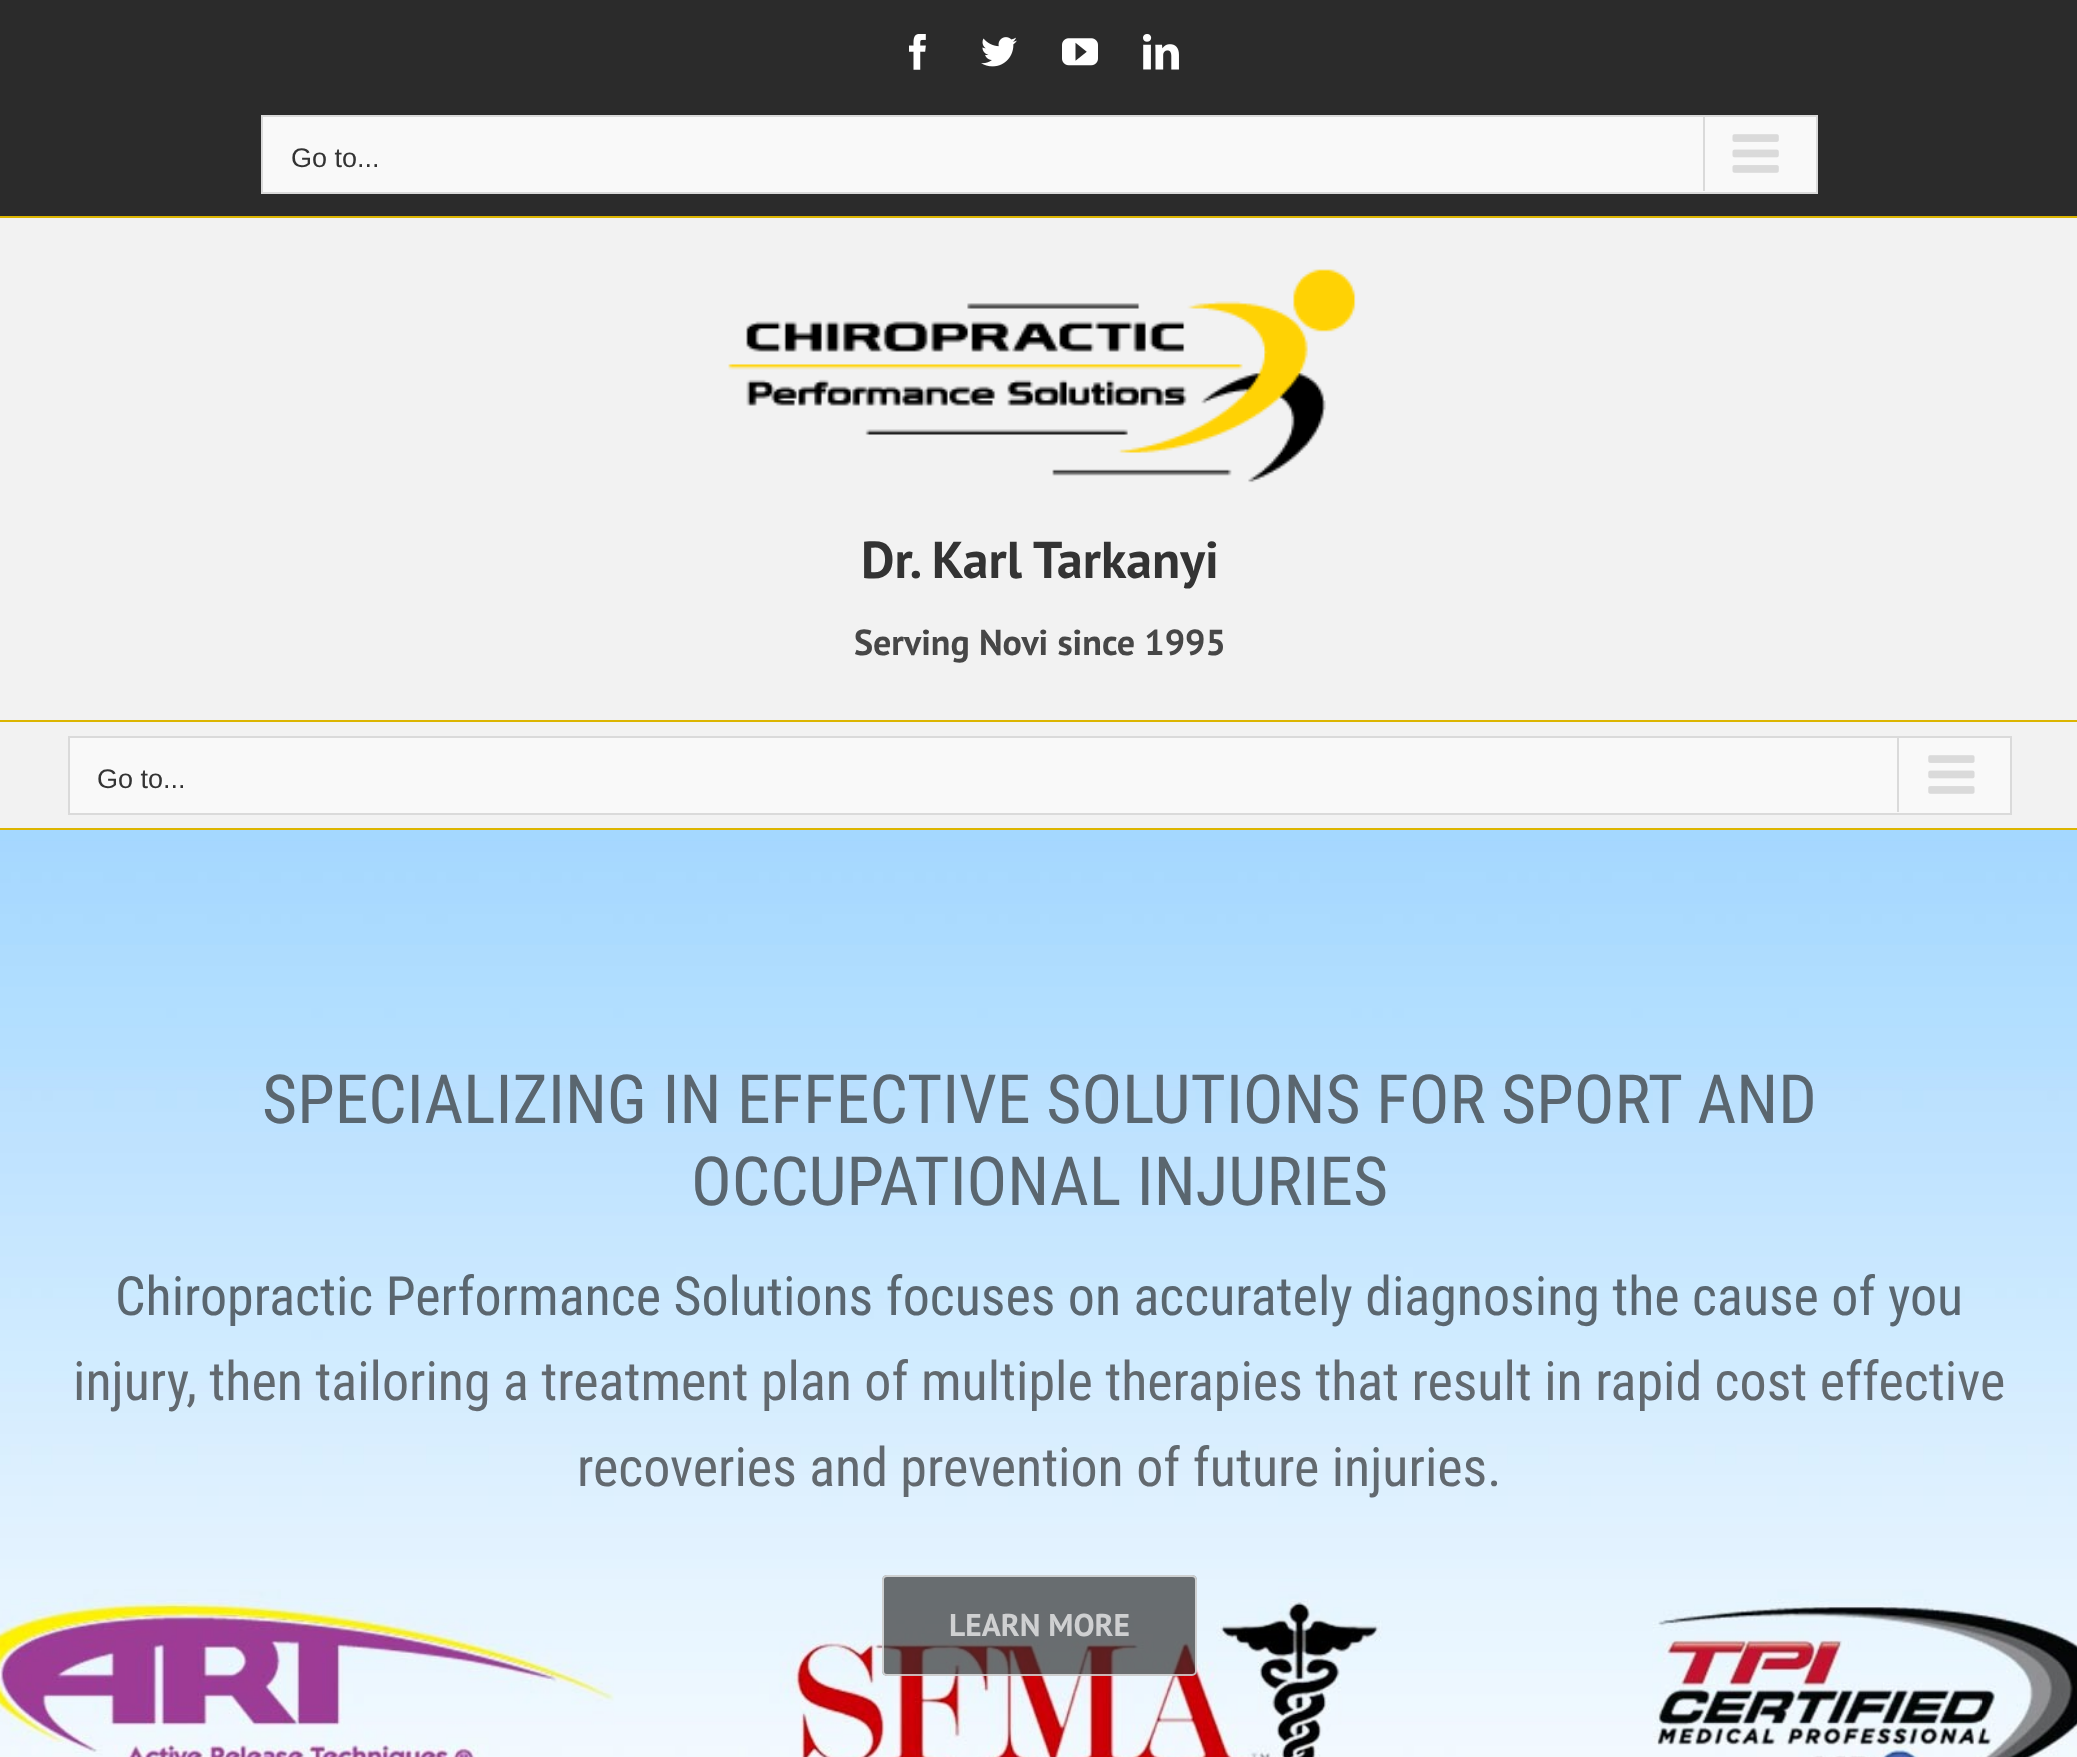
<svg xmlns="http://www.w3.org/2000/svg" width="2077" height="1757" viewBox="0 0 2077 1757">
  <rect width="100%" height="100%" fill="rgb(255,255,255)"/>
  <rect x="0" y="0" width="2077" height="216" fill="rgb(43,43,43)"/>
  <rect x="0" y="216" width="2077" height="2" fill="rgb(220,181,0)"/>
  <image x="909" y="34" width="17" height="36" href="pic1.png"/>
  <image x="981" y="37" width="36" height="30" href="pic2.png"/>
  <image x="1062" y="38" width="36" height="28" href="pic3.png"/>
  <image x="1143" y="34" width="36" height="36" href="pic4.png"/>
  <rect x="262" y="116" width="1555" height="77" fill="rgb(249,249,249)" stroke="rgb(218,218,218)" stroke-width="2"/>
  <text x="291" y="167" font-family="Liberation Sans" font-size="27" fill="rgb(51,51,51)">Go to...</text>
  <rect x="1703" y="117" width="2" height="74" fill="rgb(218,218,218)"/>
  <image x="1732" y="134" width="47" height="39" href="pic5.png"/>
  <rect x="0" y="218" width="2077" height="502" fill="rgb(242,242,242)"/>
  <rect x="0" y="720" width="2077" height="2" fill="rgb(220,181,0)"/>
  <image x="728" y="269" width="628" height="214" href="pic6.png"/>
  <text x="861" y="578" font-family="PT Sans" font-size="51.75" font-weight="bold" fill="rgb(51,51,51)">Dr. Karl Tarkanyi</text>
  <text x="854" y="655" font-family="PT Sans" font-size="36" font-weight="bold" fill="rgb(71,71,71)">Serving Novi since 1995</text>
  <rect x="0" y="722" width="2077" height="106" fill="rgb(242,242,242)"/>
  <rect x="0" y="828" width="2077" height="2" fill="rgb(220,181,0)"/>
  <rect x="69" y="737" width="1942" height="77" fill="rgb(249,249,249)" stroke="rgb(218,218,218)" stroke-width="2"/>
  <text x="97" y="788" font-family="Liberation Sans" font-size="27" fill="rgb(51,51,51)">Go to...</text>
  <rect x="1897" y="738" width="2" height="74" fill="rgb(218,218,218)"/>
  <image x="1928" y="755" width="47" height="39" href="pic7.png"/>
  <image x="0" y="830" width="2077" height="927" href="pic8.png"/>
  <g font-family="Roboto Condensed" font-size="67.75" fill="rgb(90,102,111)">
    <text x="262" y="1123">SPECIALIZING IN EFFECTIVE SOLUTIONS FOR SPORT AND</text>
    <text x="691" y="1205">OCCUPATIONAL INJURIES</text>
  </g>
  <text x="115" y="1315" font-family="Roboto Condensed" font-size="54" fill="rgb(90,102,111)">Chiropractic Performance Solutions focuses on accurately diagnosing the cause of you</text>
  <g font-family="Roboto Condensed" font-size="54" fill="rgb(98,105,111)">
    <text x="73" y="1400">injury, then tailoring a treatment plan of multiple therapies that result in rapid cost effective</text>
    <text x="577" y="1486">recoveries and prevention of future injuries.</text>
  </g>
  <rect x="882" y="1575" width="315" height="101" rx="5" fill="rgba(44,44,44,0.68)"/>
  <rect x="883" y="1576" width="313" height="99" rx="4" fill="none" stroke="rgba(255,255,255,0.68)" stroke-width="2"/>
  <text x="949" y="1636" font-family="PT Sans" font-size="31.5" font-weight="bold" fill="rgb(207,208,209)">LEARN MORE</text>
</svg>
